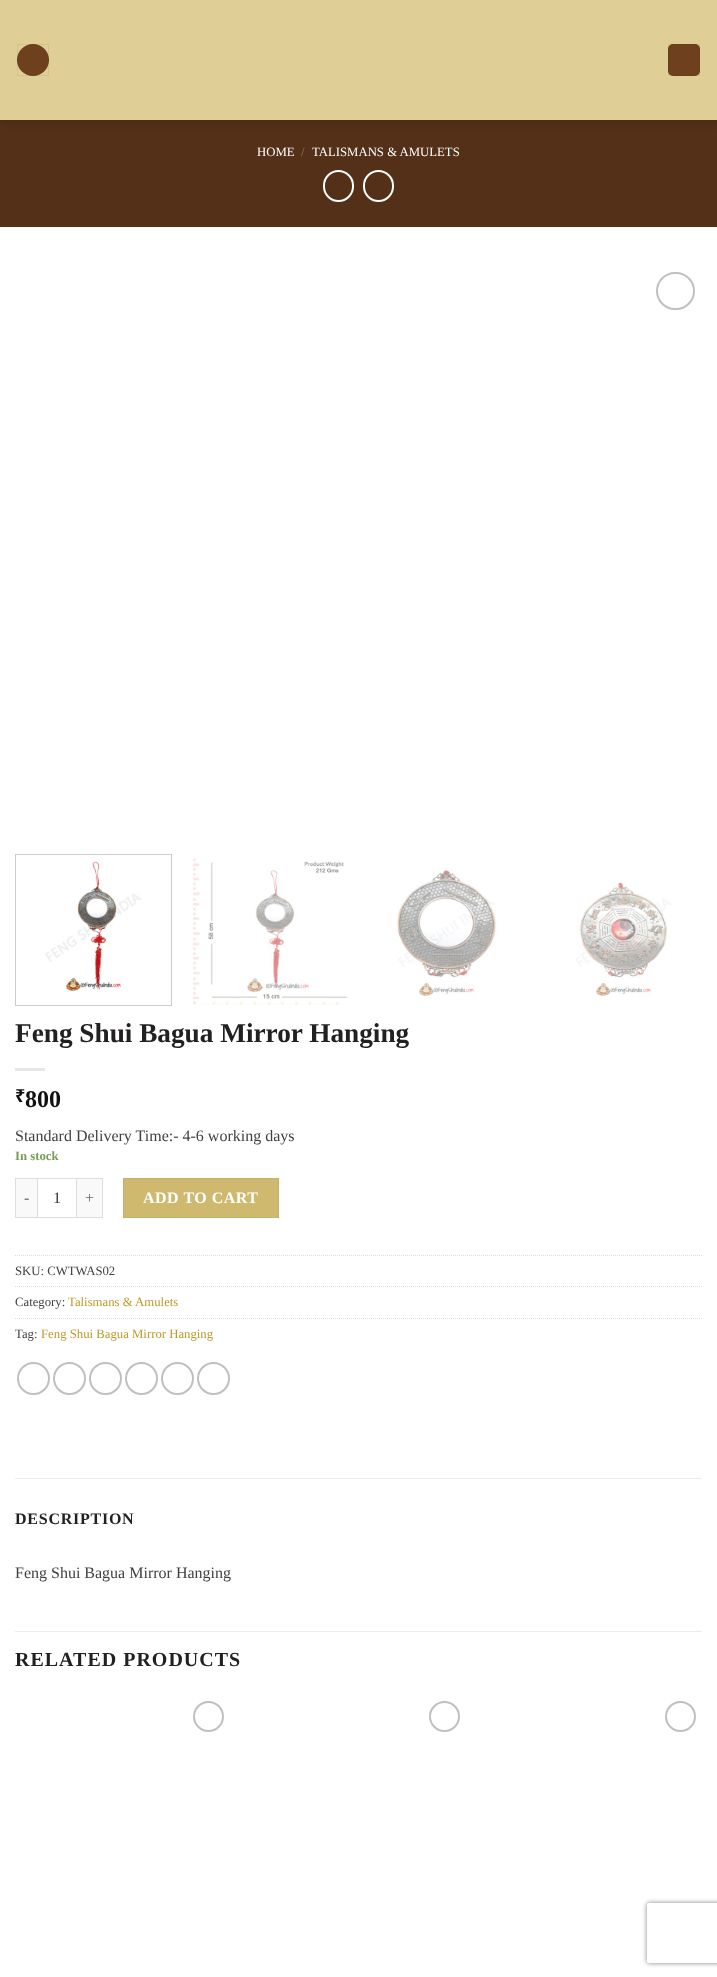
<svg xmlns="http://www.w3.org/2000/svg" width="717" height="1977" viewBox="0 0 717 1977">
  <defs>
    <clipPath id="clip1"><path d="M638 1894H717V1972H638ZM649 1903H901C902 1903 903 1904 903 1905V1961C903 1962 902 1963 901 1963H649C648 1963 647 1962 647 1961V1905C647 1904 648 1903 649 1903Z" clip-rule="evenodd"/></clipPath>
  </defs>
  <rect width="100%" height="100%" fill="rgb(255,255,255)"/>
  <rect x="0" y="120" width="717" height="107" fill="rgb(83,48,23)"/>
  <rect x="1" y="1" width="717" height="120" fill="rgba(0,0,0,0.15)" filter="blur(5px)"/>
  <rect x="0" y="0" width="717" height="120" fill="rgb(223,206,149)"/>
  <circle cx="33" cy="60" r="16" fill="rgb(111,64,30)"/>
  <rect x="17.5" y="44.5" width="31" height="31" fill="none" stroke="rgba(0,0,0,0.05)"/>
  <rect x="668" y="44" width="32" height="32" rx="5" fill="rgb(111,64,30)"/>
  <rect x="668.5" y="44.5" width="31" height="31" fill="none" stroke="rgba(0,0,0,0.05)"/>
  <rect x="15" y="120" width="687" height="1" fill="rgb(75,46,25)"/>
  <text x="257" y="156" font-family="Liberation Serif" font-size="12.75" fill="rgb(255,255,255)">HOME</text>
  <text x="301" y="156" font-family="Liberation Serif" font-size="12.75" fill="rgb(143,120,104)">/</text>
  <text x="312" y="156" font-family="Liberation Serif" font-size="12.75" fill="rgb(255,255,255)">TALISMANS &amp; AMULETS</text>
  <rect x="324" y="171" width="29" height="30" rx="14.5" fill="none" stroke="rgb(255,255,255)" stroke-width="2"/>
  <rect x="364" y="171" width="29" height="30" rx="14.5" fill="none" stroke="rgb(255,255,255)" stroke-width="2"/>
  <rect x="657" y="273" width="37" height="36" rx="18" fill="none" stroke="rgb(192,192,192)" stroke-width="2"/>
  <rect x="15.5" y="854.5" width="156" height="151" fill="none" stroke="rgb(204,204,204)"/>
  <image x="45" y="860" width="97" height="133" href="pic1.png"/>
  <image x="193" y="857" width="155" height="148" href="pic2.png"/>
  <image x="396" y="868" width="102" height="130" href="pic3.png"/>
  <image x="575" y="880" width="97" height="118" href="pic4.png"/>
  <text x="15" y="1042" font-family="Liberation Serif" font-size="27.25" font-weight="bold" fill="rgb(34,32,32)">Feng Shui Bagua Mirror Hanging</text>
  <rect x="15" y="1068" width="30" height="3" fill="rgb(230,230,230)"/>
  <text x="15" y="1102" font-family="Noto Sans" font-size="18" font-weight="bold" fill="rgb(17,17,17)">₹</text>
  <text x="25" y="1107" font-family="Liberation Serif" font-size="24" font-weight="bold" fill="rgb(17,17,17)">800</text>
  <text x="15" y="1141" font-family="Liberation Serif" font-size="16" fill="rgb(68,64,64)">Standard Delivery Time:- 4-6 working days</text>
  <text x="15" y="1160" font-family="Liberation Serif" font-size="12.75" font-weight="bold" fill="rgb(122,156,89)">In stock</text>
  <rect x="16" y="1179" width="21" height="38" fill="rgb(249,249,249)"/>
  <rect x="15" y="1178" width="22" height="1" fill="rgb(221,221,221)"/>
  <rect x="15" y="1217" width="22" height="1" fill="rgb(221,221,221)"/>
  <rect x="15" y="1178" width="1" height="40" fill="rgb(221,221,221)"/>
  <text x="24" y="1203" font-family="Liberation Serif" font-size="16" fill="rgb(102,102,102)">-</text>
  <rect x="37.5" y="1178.5" width="39" height="39" fill="none" stroke="rgb(221,221,221)"/>
  <text x="53" y="1203" font-family="Liberation Serif" font-size="16" fill="rgb(51,51,51)">1</text>
  <rect x="77" y="1179" width="25" height="38" fill="rgb(249,249,249)"/>
  <rect x="77" y="1178" width="26" height="1" fill="rgb(221,221,221)"/>
  <rect x="102" y="1178" width="1" height="40" fill="rgb(221,221,221)"/>
  <rect x="77" y="1217" width="26" height="1" fill="rgb(221,221,221)"/>
  <text x="85" y="1203" font-family="Liberation Serif" font-size="16" fill="rgb(102,102,102)">+</text>
  <rect x="123.5" y="1178.5" width="155" height="39" fill="rgb(207,185,110)" stroke="rgb(197,176,105)"/>
  <text x="143" y="1203" font-family="Liberation Serif" font-size="16" font-weight="bold" letter-spacing="0.5" fill="rgb(255,255,255)">ADD TO CART</text>
  <path d="M15 1255.5H702" fill="none" stroke="rgb(221,221,221)" stroke-dasharray="1 1"/>
  <text x="15" y="1275" font-family="Liberation Serif" font-size="12.75" fill="rgb(68,64,64)">SKU: CWTWAS02</text>
  <path d="M15 1286.5H702" fill="none" stroke="rgb(221,221,221)" stroke-dasharray="1 1"/>
  <text x="15" y="1306" font-family="Liberation Serif" font-size="12.75" fill="rgb(68,64,64)">Category:</text>
  <text x="68" y="1306" font-family="Liberation Serif" font-size="12.75" fill="rgb(188,153,41)">Talismans &amp; Amulets</text>
  <path d="M15 1318.5H702" fill="none" stroke="rgb(221,221,221)" stroke-dasharray="1 1"/>
  <text x="15" y="1338" font-family="Liberation Serif" font-size="12.75" fill="rgb(68,64,64)">Tag:</text>
  <text x="41" y="1338" font-family="Liberation Serif" font-size="12.75" fill="rgb(188,153,41)">Feng Shui Bagua Mirror Hanging</text>
  <circle cx="33.5" cy="1378.5" r="15.5" fill="none" stroke="rgb(192,192,192)" stroke-width="2"/>
  <circle cx="69.5" cy="1378.5" r="15.5" fill="none" stroke="rgb(192,192,192)" stroke-width="2"/>
  <circle cx="105.5" cy="1378.5" r="15.5" fill="none" stroke="rgb(192,192,192)" stroke-width="2"/>
  <circle cx="141.5" cy="1378.5" r="15.5" fill="none" stroke="rgb(192,192,192)" stroke-width="2"/>
  <circle cx="177.5" cy="1378.5" r="15.5" fill="none" stroke="rgb(192,192,192)" stroke-width="2"/>
  <circle cx="213.5" cy="1378.5" r="15.5" fill="none" stroke="rgb(192,192,192)" stroke-width="2"/>
  <rect x="15" y="1478" width="687" height="1" fill="rgb(236,236,236)"/>
  <text x="15" y="1524" font-family="Liberation Serif" font-size="16" font-weight="bold" letter-spacing="0.75" fill="rgb(34,32,32)">DESCRIPTION</text>
  <text x="15" y="1578" font-family="Liberation Serif" font-size="16" fill="rgb(68,64,64)">Feng Shui Bagua Mirror Hanging</text>
  <rect x="15" y="1631" width="687" height="1" fill="rgb(236,236,236)"/>
  <text x="15" y="1666" font-family="Liberation Serif" font-size="20" font-weight="bold" letter-spacing="1" fill="rgb(34,32,32)">RELATED PRODUCTS</text>
  <circle cx="208.5" cy="1716.5" r="14.5" fill="none" stroke="rgb(192,192,192)" stroke-width="2"/>
  <circle cx="444.5" cy="1716.5" r="14.5" fill="none" stroke="rgb(192,192,192)" stroke-width="2"/>
  <circle cx="680.5" cy="1716.5" r="14.5" fill="none" stroke="rgb(192,192,192)" stroke-width="2"/>
  <g clip-path="url(#clip1)">
    <rect x="647" y="1903" width="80" height="60" rx="2" fill="rgb(128,128,128)" filter="blur(2.5px)"/>
  </g>
</svg>
